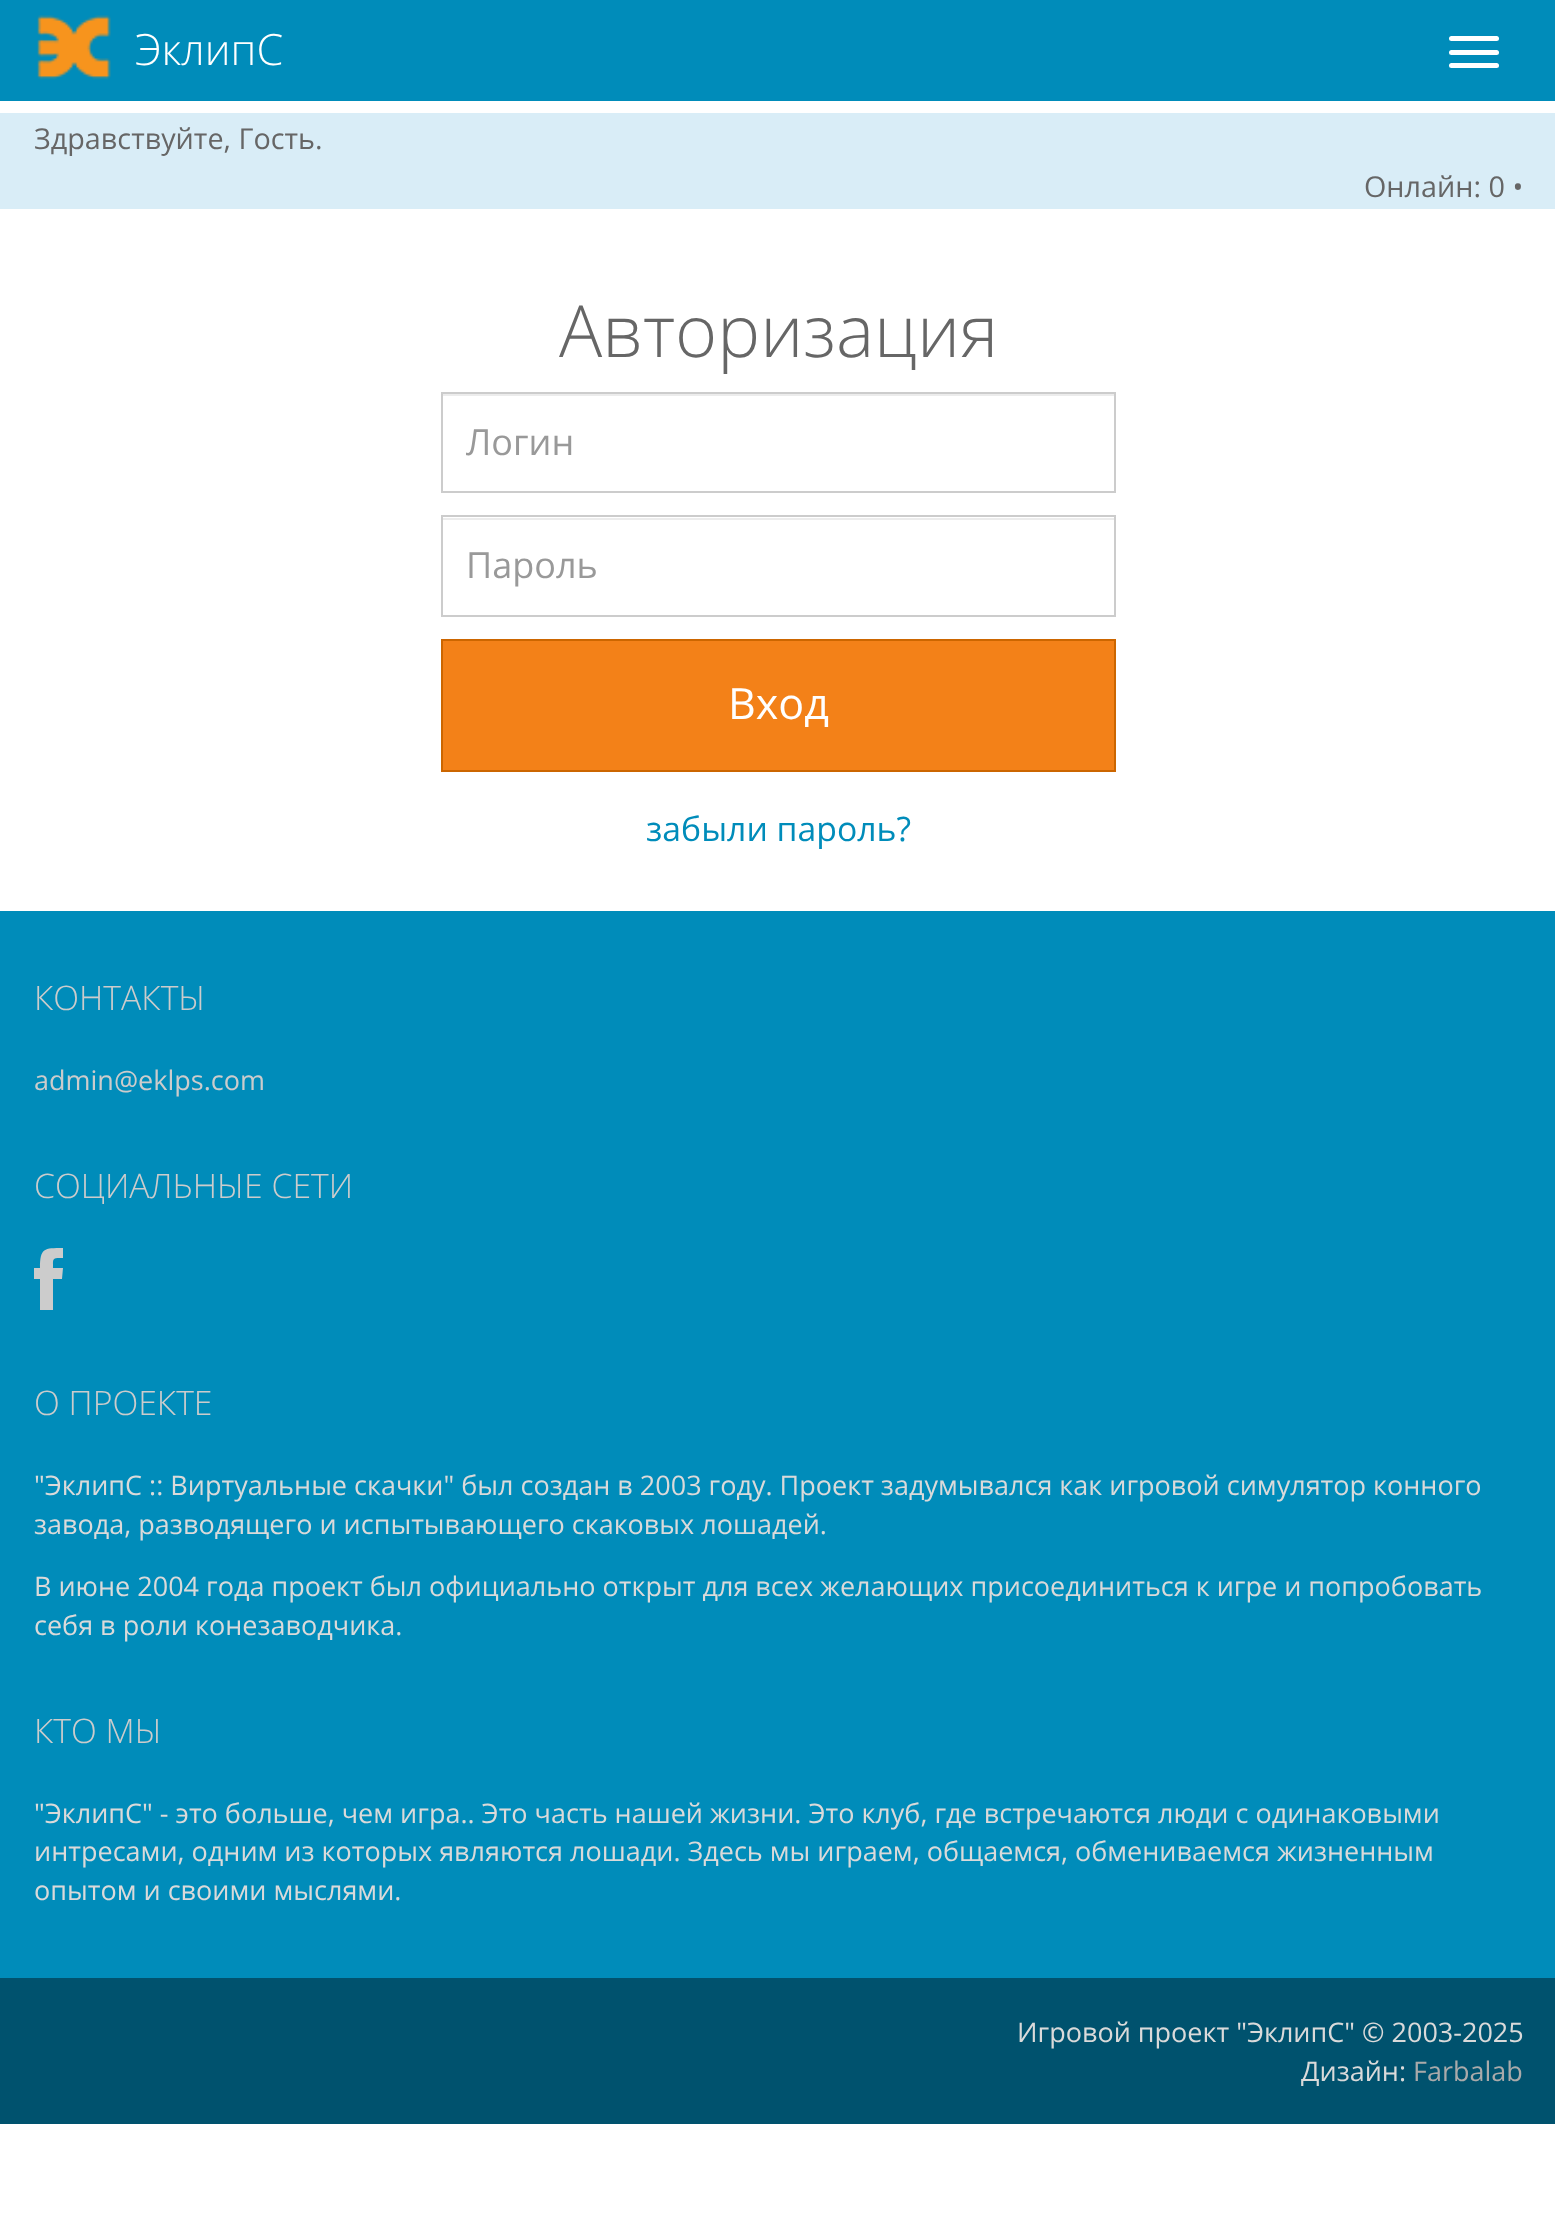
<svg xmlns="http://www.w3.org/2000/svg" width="1555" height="2222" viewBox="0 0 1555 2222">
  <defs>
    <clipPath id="clip1"><rect x="466" y="416" width="625" height="50"/></clipPath>
  </defs>
  <rect width="100%" height="100%" fill="rgb(255,255,255)"/>
  <rect x="0" y="0" width="1555" height="101" fill="rgb(0,140,186)"/>
  <image x="37" y="15" width="74" height="65" href="pic1.png"/>
  <text x="135" y="65" font-family="Open Sans" font-size="43" font-weight="300" fill="rgb(255,255,255)">ЭклипС</text>
  <rect x="1449" y="36" width="50" height="5" rx="2.5" fill="rgb(255,255,255)"/>
  <rect x="1449" y="50" width="50" height="5" rx="2.5" fill="rgb(255,255,255)"/>
  <rect x="1449" y="63" width="50" height="5" rx="2.5" fill="rgb(255,255,255)"/>
  <rect x="0" y="113" width="1555" height="96" fill="rgb(217,237,247)"/>
  <g font-family="Open Sans" font-size="28.75" fill="rgb(102,102,102)">
    <text x="34" y="149">Здравствуйте, Гость.</text>
    <text x="1364" y="197">Онлайн: 0 •</text>
  </g>
  <text x="559" y="357" font-family="Open Sans" font-size="72" font-weight="300" fill="rgb(102,102,102)">Авторизация</text>
  <rect x="443" y="394" width="671" height="2" fill="rgb(236,236,236)"/>
  <rect x="442" y="393" width="673" height="99" fill="none" stroke="rgb(204,204,204)" stroke-width="2"/>
  <g clip-path="url(#clip1)">
    <text x="466" y="455" font-family="Open Sans" font-size="36" fill="rgb(153,153,153)">Логин</text>
  </g>
  <rect x="443" y="518" width="671" height="2" fill="rgb(236,236,236)"/>
  <rect x="442" y="516" width="673" height="100" fill="none" stroke="rgb(204,204,204)" stroke-width="2"/>
  <text x="466" y="578" font-family="Open Sans" font-size="36" fill="rgb(153,153,153)">Пароль</text>
  <rect x="442" y="640" width="673" height="131" fill="rgb(243,129,24)" stroke="rgb(204,102,0)" stroke-width="2"/>
  <text x="728" y="719" font-family="Open Sans" font-size="43" fill="rgb(255,255,255)">Вход</text>
  <text x="646" y="841" font-family="Open Sans" font-size="33.75" fill="rgb(0,140,186)">забыли пароль?</text>
  <rect x="0" y="911" width="1555" height="1067" fill="rgb(0,140,186)"/>
  <text x="34" y="1010" font-family="Open Sans" font-size="33.75" font-weight="300" fill="rgb(204,204,204)">КОНТАКТЫ</text>
  <text x="34" y="1090" font-family="Open Sans" font-size="27" fill="rgb(204,204,204)">admin@eklps.com</text>
  <text x="34" y="1198" font-family="Open Sans" font-size="33.75" font-weight="300" fill="rgb(204,204,204)">СОЦИАЛЬНЫЕ СЕТИ</text>
  <path d="M53 1268H63L62 1279H53V1310H40V1279H34V1268H40C40 1248 44 1248 63 1248V1258C52 1258 53 1258 53 1268Z" fill="rgb(204,204,204)"/>
  <text x="34" y="1415" font-family="Open Sans" font-size="33.75" font-weight="300" fill="rgb(204,204,204)">О ПРОЕКТЕ</text>
  <g font-family="Open Sans" font-size="27" fill="rgb(218,218,218)">
    <text>
      <tspan x="34" y="1495">"ЭклипС :: Виртуальные скачки" был создан в 2003 году. Проект задумывался как игровой симулятор конного</tspan>
      <tspan x="34" y="1534">завода, разводящего и испытывающего скаковых лошадей.</tspan>
    </text>
    <text>
      <tspan x="34" y="1596">В июне 2004 года проект был официально открыт для всех желающих присоединиться к игре и попробовать</tspan>
      <tspan x="34" y="1635">себя в роли конезаводчика.</tspan>
    </text>
  </g>
  <text x="34" y="1743" font-family="Open Sans" font-size="33.75" font-weight="300" fill="rgb(204,204,204)">КТО МЫ</text>
  <g font-family="Open Sans" font-size="27" fill="rgb(218,218,218)">
    <text>
      <tspan x="34" y="1823">"ЭклипС" - это больше, чем игра.. Это часть нашей жизни. Это клуб, где встречаются люди с одинаковыми</tspan>
      <tspan x="34" y="1861">интресами, одним из которых являются лошади. Здесь мы играем, общаемся, обмениваемся жизненным</tspan>
      <tspan x="34" y="1900">опытом и своими мыслями.</tspan>
    </text>
  </g>
  <rect x="0" y="1978" width="1555" height="146" fill="rgb(0,82,110)"/>
  <g font-family="Open Sans" font-size="27" fill="rgb(218,218,218)">
    <text x="1017" y="2042">Игровой проект "ЭклипС" © 2003-2025</text>
    <text x="1301" y="2081">Дизайн:</text>
  </g>
  <text x="1413" y="2081" font-family="Open Sans" font-size="27" fill="rgb(170,170,170)">Farbalab</text>
</svg>
